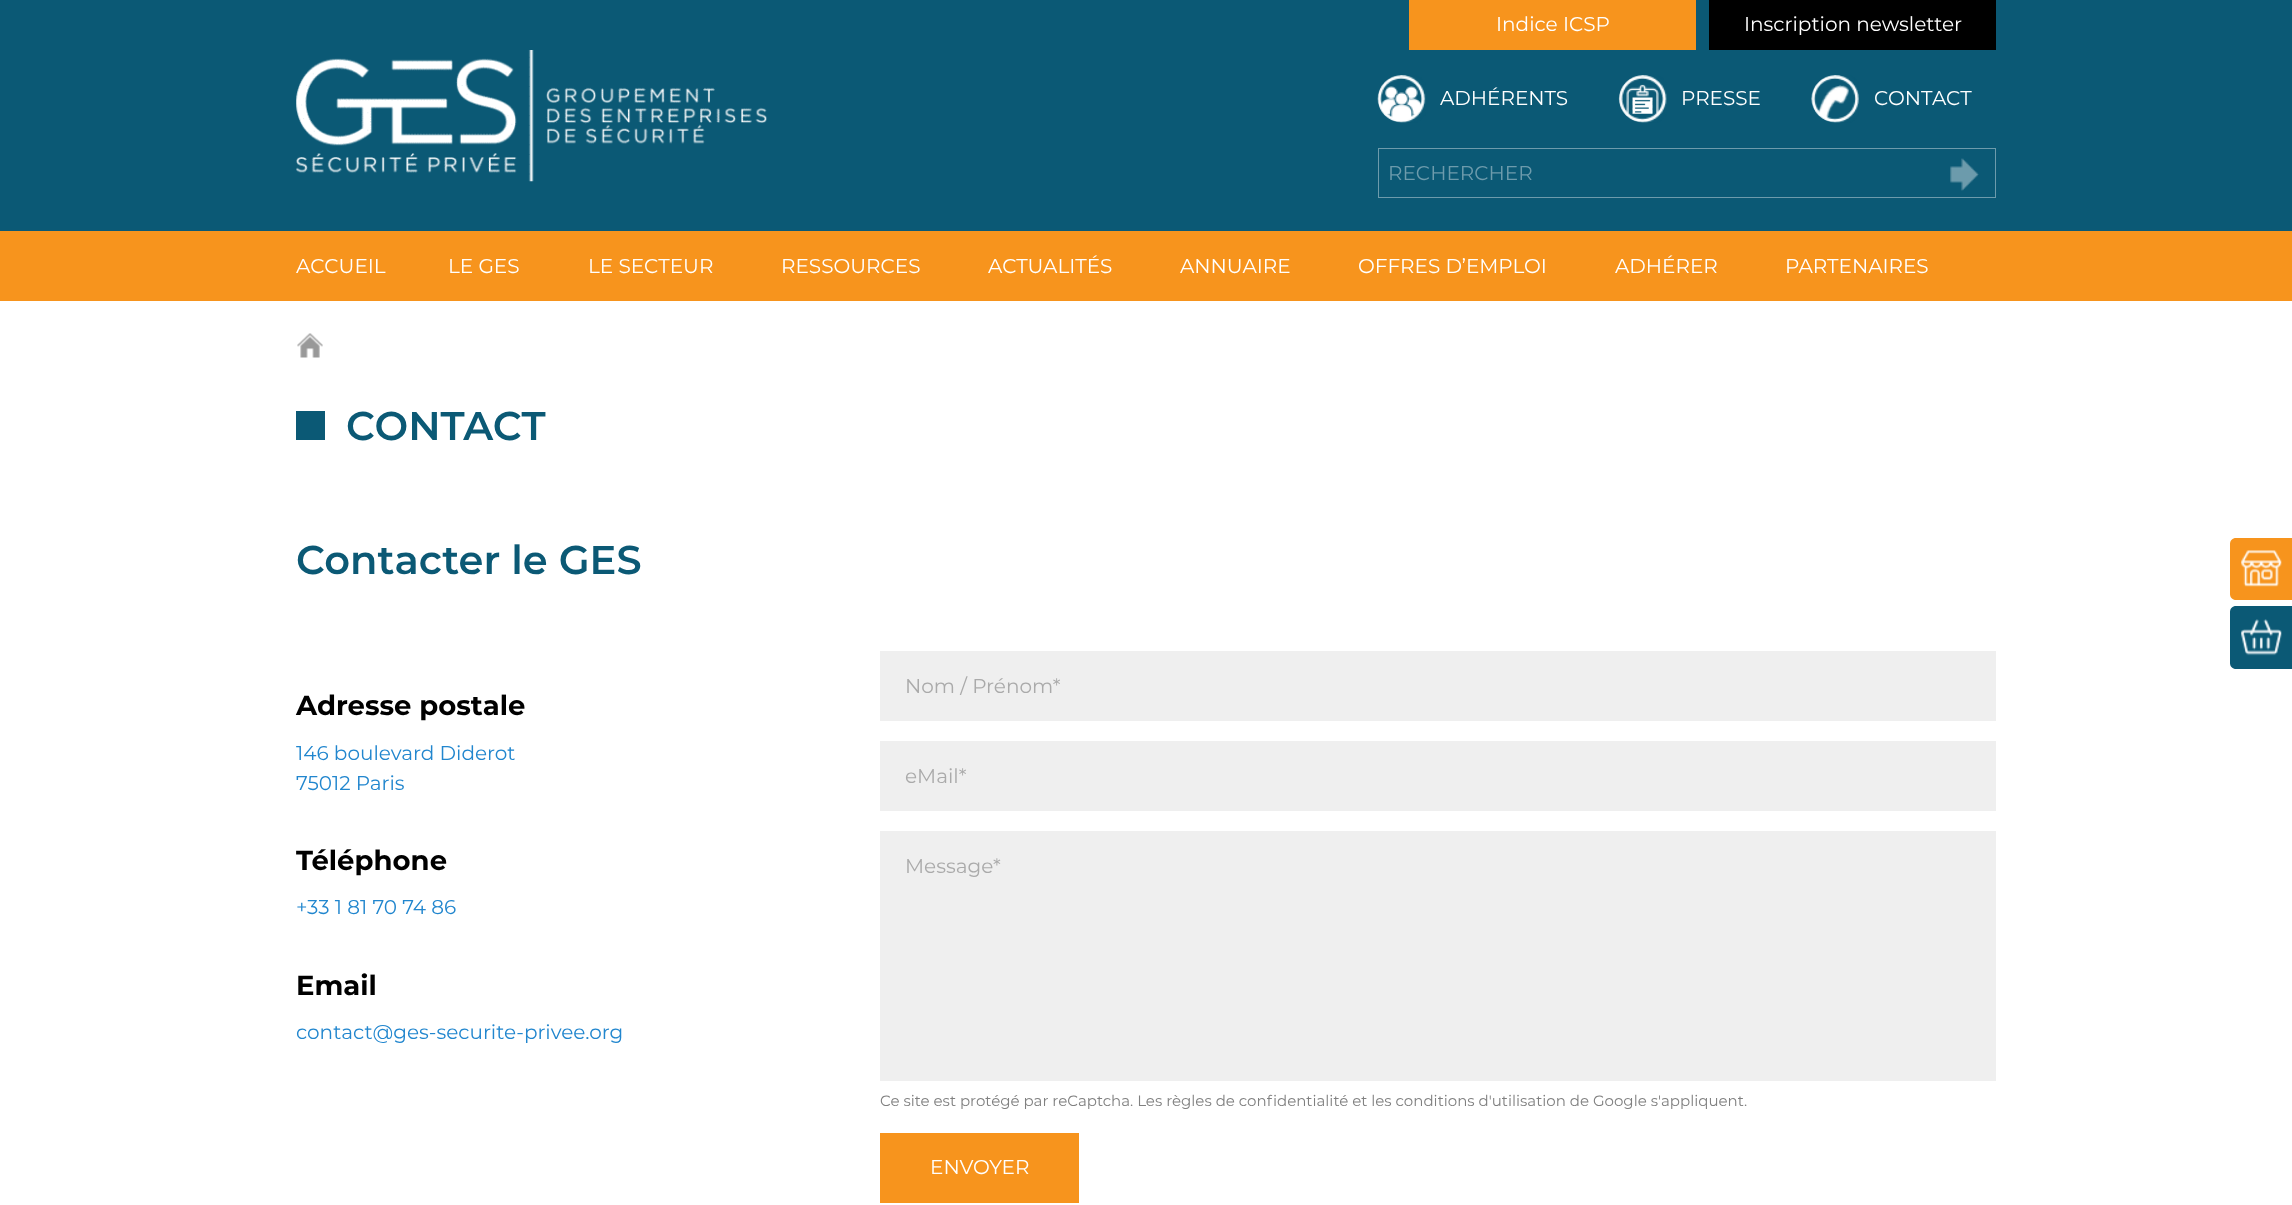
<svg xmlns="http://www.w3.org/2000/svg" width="2292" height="1205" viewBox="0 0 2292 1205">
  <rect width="100%" height="100%" fill="rgb(255,255,255)"/>
  <rect x="0" y="0" width="2292" height="231" fill="rgb(11,89,117)"/>
  <rect x="1409" y="0" width="287" height="50" fill="rgb(247,148,29)"/>
  <text x="1496" y="31" font-family="Montserrat" font-size="20" fill="rgb(255,255,255)">Indice ICSP</text>
  <rect x="1709" y="0" width="287" height="50" fill="rgb(0,0,0)"/>
  <text x="1744" y="31" font-family="Montserrat" font-size="20" fill="rgb(255,255,255)">Inscription newsletter</text>
  <image x="296" y="50" width="471" height="132" href="pic1.png"/>
  <image x="1377" y="75" width="49" height="48" href="pic2.png"/>
  <text x="1440" y="105" font-family="Montserrat" font-size="20" fill="rgb(255,255,255)">ADHÉRENTS</text>
  <image x="1618" y="75" width="49" height="48" href="pic3.png"/>
  <text x="1681" y="105" font-family="Montserrat" font-size="20" fill="rgb(255,255,255)">PRESSE</text>
  <image x="1811" y="75" width="48" height="48" href="pic4.png"/>
  <text x="1874" y="105" font-family="Montserrat" font-size="20" fill="rgb(255,255,255)">CONTACT</text>
  <rect x="1378.5" y="148.5" width="617" height="49" fill="none" stroke="rgb(109,155,172)"/>
  <text x="1388" y="180" font-family="Montserrat" font-size="20" fill="rgb(109,155,172)">RECHERCHER</text>
  <image x="1950" y="158" width="29" height="33" href="pic5.png"/>
  <rect x="0" y="231" width="2292" height="70" fill="rgb(247,148,29)"/>
  <g font-family="Montserrat" font-size="20" fill="rgb(255,255,255)">
    <text x="296" y="273">ACCUEIL</text>
    <text x="448" y="273">LE GES</text>
    <text x="588" y="273">LE SECTEUR</text>
    <text x="781" y="273">RESSOURCES</text>
    <text x="988" y="273">ACTUALITÉS</text>
    <text x="1180" y="273">ANNUAIRE</text>
    <text x="1358" y="273">OFFRES D’EMPLOI</text>
    <text x="1615" y="273">ADHÉRER</text>
    <text x="1785" y="273">PARTENAIRES</text>
  </g>
  <image x="297" y="333" width="26" height="25" href="pic6.png"/>
  <rect x="296" y="411" width="29" height="29" fill="rgb(11,89,117)"/>
  <g font-family="Montserrat" font-size="40" font-weight="600" fill="rgb(11,89,117)">
    <text x="346" y="440">CONTACT</text>
    <text x="296" y="574">Contacter le GES</text>
  </g>
  <text x="296" y="715" font-family="Montserrat" font-size="27.5" font-weight="bold" fill="rgb(0,0,0)">Adresse postale</text>
  <g font-family="Montserrat" font-size="20" fill="rgb(33,134,206)">
    <text>
      <tspan x="296" y="760">146 boulevard Diderot</tspan>
      <tspan x="296" y="790">75012 Paris</tspan>
    </text>
  </g>
  <text x="296" y="870" font-family="Montserrat" font-size="27.5" font-weight="bold" fill="rgb(0,0,0)">Téléphone</text>
  <text x="296" y="914" font-family="Montserrat" font-size="20" fill="rgb(33,134,206)">+33 1 81 70 74 86</text>
  <text x="296" y="995" font-family="Montserrat" font-size="27.5" font-weight="bold" fill="rgb(0,0,0)">Email</text>
  <text x="296" y="1039" font-family="Montserrat" font-size="20" fill="rgb(33,134,206)">contact@ges-securite-privee.org</text>
  <rect x="880" y="651" width="1116" height="70" fill="rgb(239,239,239)"/>
  <text x="905" y="693" font-family="Montserrat" font-size="20" fill="rgb(170,170,170)">Nom / Prénom*</text>
  <rect x="880" y="741" width="1116" height="70" fill="rgb(239,239,239)"/>
  <text x="905" y="783" font-family="Montserrat" font-size="20" fill="rgb(170,170,170)">eMail*</text>
  <rect x="880" y="831" width="1116" height="250" fill="rgb(239,239,239)"/>
  <text x="905" y="873" font-family="Montserrat" font-size="20" fill="rgb(170,170,170)">Message*</text>
  <text x="880" y="1106" font-family="Montserrat" font-size="15" fill="rgb(128,128,128)">Ce site est protégé par reCaptcha. Les règles de confidentialité et les conditions d'utilisation de Google s'appliquent.</text>
  <rect x="880" y="1133" width="199" height="70" fill="rgb(247,148,29)"/>
  <text x="930" y="1174" font-family="Montserrat" font-size="20" fill="rgb(255,255,255)">ENVOYER</text>
  <path d="M2236 538H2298V600H2236C2232.5 600 2230 597.5 2230 594V544C2230 540.5 2232.5 538 2236 538Z" fill="rgb(247,148,29)"/>
  <image x="2241" y="550" width="41" height="37" href="pic7.png"/>
  <path d="M2236 606H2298V669H2236C2232.5 669 2230 666.5 2230 663V612C2230 608.5 2232.5 606 2236 606Z" fill="rgb(11,89,117)"/>
  <image x="2241" y="619" width="41" height="37" href="pic8.png"/>
</svg>
